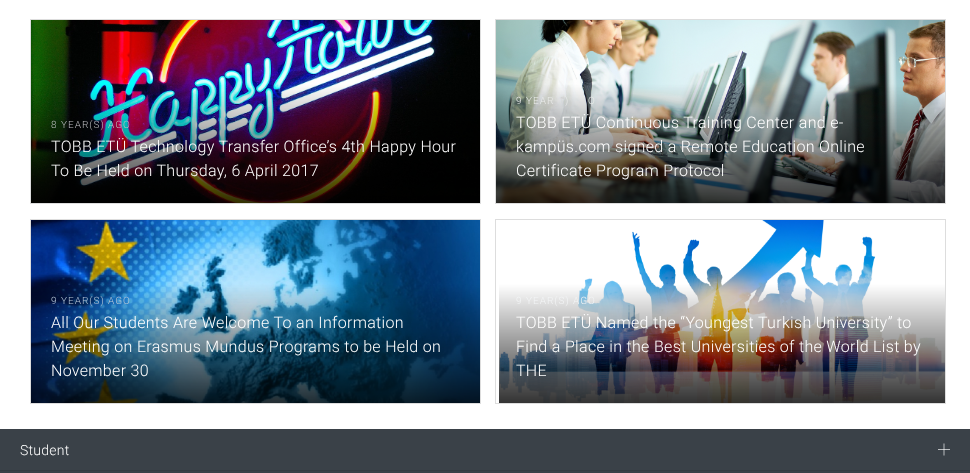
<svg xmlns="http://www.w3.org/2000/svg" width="970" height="473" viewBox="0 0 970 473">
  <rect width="100%" height="100%" fill="rgb(255,255,255)"/>
  <rect x="30.5" y="19.5" width="450" height="184" fill="none" stroke="rgb(221,221,221)"/>
  <image x="31" y="20" width="449" height="183" href="pic1.png"/>
  <text x="51" y="128" font-family="Roboto" font-size="10" font-weight="300" letter-spacing="1" fill="rgb(189,189,193)">8 YEAR(S) AGO</text>
  <g font-family="Roboto" font-size="16" font-weight="300" letter-spacing="0.32" fill="rgb(255,255,255)">
    <text>
      <tspan x="51" y="152">TOBB ETÜ Technology Transfer Office’s 4th Happy Hour</tspan>
      <tspan x="51" y="176">To Be Held on Thursday, 6 April 2017</tspan>
    </text>
  </g>
  <rect x="495.5" y="19.5" width="450" height="184" fill="none" stroke="rgb(221,221,221)"/>
  <image x="496" y="20" width="449" height="183" href="pic2.png"/>
  <g font-family="Roboto" font-size="10" font-weight="300" letter-spacing="1" fill="rgb(234,235,234)">
    <text x="516" y="104">9 YEAR</text>
    <text x="565" y="104">)</text>
    <text x="588" y="104">O</text>
  </g>
  <g font-family="Roboto" font-size="16" font-weight="300" letter-spacing="0.32" fill="rgb(255,255,255)">
    <text>
      <tspan x="516" y="128">TOBB ETÜ Continuous Training Center and e-</tspan>
      <tspan x="516" y="152">kampüs.com signed a Remote Education Online</tspan>
      <tspan x="516" y="176">Certificate Program Protocol</tspan>
    </text>
  </g>
  <rect x="30.5" y="219.5" width="450" height="184" fill="none" stroke="rgb(221,221,221)"/>
  <image x="31" y="220" width="449" height="183" href="pic3.png"/>
  <text x="51" y="304" font-family="Roboto" font-size="10" font-weight="300" letter-spacing="1" fill="rgb(183,199,216)">9 YEAR(S) AGO</text>
  <g font-family="Roboto" font-size="16" font-weight="300" letter-spacing="0.32" fill="rgb(255,255,255)">
    <text>
      <tspan x="51" y="328">All Our Students Are Welcome To an Information</tspan>
      <tspan x="51" y="352">Meeting on Erasmus Mundus Programs to be Held on</tspan>
      <tspan x="51" y="376">November 30</tspan>
    </text>
  </g>
  <rect x="495.5" y="219.5" width="450" height="184" fill="none" stroke="rgb(221,221,221)"/>
  <image x="499" y="220" width="446" height="183" href="pic4.png"/>
  <text x="516" y="304" font-family="Roboto" font-size="10" font-weight="300" letter-spacing="1" fill="rgb(243,245,246)">9 YEAR(S) AGO</text>
  <g font-family="Roboto" font-size="16" font-weight="300" letter-spacing="0.32" fill="rgb(255,255,255)">
    <text>
      <tspan x="516" y="328">TOBB ETÜ Named the “Youngest Turkish University” to</tspan>
      <tspan x="516" y="352">Find a Place in the Best Universities of the World List by</tspan>
      <tspan x="516" y="376">THE</tspan>
    </text>
  </g>
  <rect x="0" y="429" width="970" height="44" fill="rgb(58,65,72)"/>
  <rect x="0" y="470" width="970" height="1" fill="rgb(53,60,66)"/>
  <text x="20" y="455" font-family="Roboto" font-size="14" font-weight="300" letter-spacing="0.25" fill="rgb(255,255,255)">Student</text>
  <image x="938" y="443" width="12" height="13" href="pic5.png"/>
</svg>
